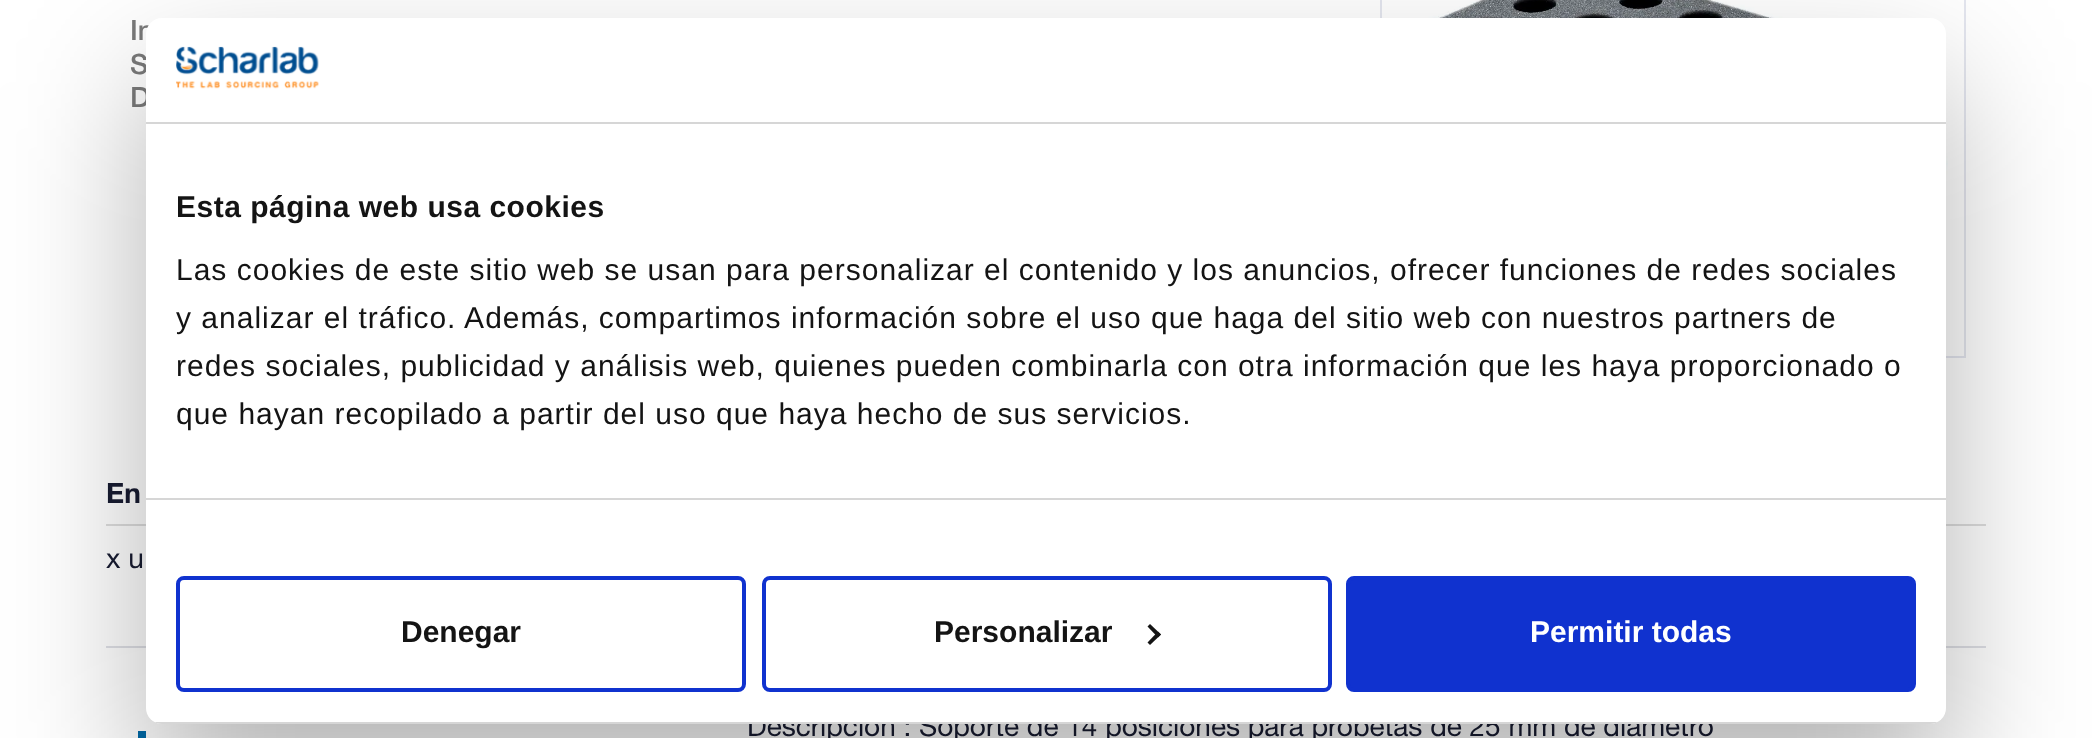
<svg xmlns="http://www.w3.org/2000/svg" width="2092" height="738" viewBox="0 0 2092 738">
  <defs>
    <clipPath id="clip1"><rect x="146" y="18" width="1800" height="706" rx="16"/></clipPath>
  </defs>
  <rect width="100%" height="100%" fill="rgb(255,255,255)"/>
  <g font-family="Helvetica Neue" font-size="28" font-weight="500" fill="rgb(122,122,122)">
    <text>
      <tspan x="130" y="40">In</tspan>
      <tspan x="130" y="74">S</tspan>
      <tspan x="130" y="107">D</tspan>
    </text>
  </g>
  <rect x="1381" y="-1" width="584" height="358" fill="none" stroke="rgb(228,230,239)" stroke-width="2"/>
  <image x="1417" y="0" width="531" height="253" href="pic1.png"/>
  <rect x="106" y="524" width="1880" height="2" fill="rgb(222,222,222)"/>
  <text x="106" y="503" font-family="Helvetica Neue" font-size="28" font-weight="bold" fill="rgb(24,28,50)">En</text>
  <text x="106" y="568" font-family="Helvetica Neue" font-size="28" fill="rgb(24,28,50)">x u</text>
  <rect x="106" y="646" width="1880" height="2" fill="rgb(223,224,230)"/>
  <rect x="138" y="731" width="8" height="7" fill="rgb(0,106,168)"/>
  <text x="747" y="736" font-family="Helvetica Neue" font-size="28" fill="rgb(24,28,50)">Descripción : Soporte de 14 posiciones para probetas de 25 mm de diámetro</text>
  <rect x="146" y="82" width="1800" height="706" rx="16" fill="rgba(0,0,0,0.3)" filter="blur(68px)"/>
  <rect x="146" y="18" width="1800" height="706" rx="16" fill="rgb(255,255,255)"/>
  <rect x="146" y="122" width="1800" height="2" fill="rgb(214,214,214)"/>
  <image x="176" y="46" width="143" height="43" href="pic2.png"/>
  <rect x="146" y="498" width="1800" height="2" fill="rgb(214,214,214)"/>
  <text x="176" y="217" font-family="Liberation Sans" font-size="30" font-weight="bold" letter-spacing="0.5" fill="rgb(20,20,20)">Esta página web usa cookies</text>
  <g font-family="Liberation Sans" font-size="30" letter-spacing="1" fill="rgb(20,20,20)">
    <text>
      <tspan x="176" y="280">Las cookies de este sitio web se usan para personalizar el contenido y los anuncios, ofrecer funciones de redes sociales</tspan>
      <tspan x="176" y="328">y analizar el tráfico. Además, compartimos información sobre el uso que haga del sitio web con nuestros partners de</tspan>
      <tspan x="176" y="376">redes sociales, publicidad y análisis web, quienes pueden combinarla con otra información que les haya proporcionado o</tspan>
      <tspan x="176" y="424">que hayan recopilado a partir del uso que haya hecho de sus servicios.</tspan>
    </text>
  </g>
  <g clip-path="url(#clip1)">
    <rect x="146" y="722" width="1800" height="2" fill="rgb(214,214,214)"/>
  </g>
  <rect x="178" y="578" width="566" height="112" rx="6" fill="none" stroke="rgb(16,50,207)" stroke-width="4"/>
  <text x="401" y="642" font-family="Liberation Sans" font-size="30" font-weight="bold" fill="rgb(20,20,20)">Denegar</text>
  <rect x="764" y="578" width="566" height="112" rx="6" fill="none" stroke="rgb(16,50,207)" stroke-width="4"/>
  <text x="934" y="642" font-family="Liberation Sans" font-size="30" font-weight="bold" fill="rgb(20,20,20)">Personalizar</text>
  <path d="M1150 624L1161 634.5L1158 637.5L1147.5 626.5Z" fill="rgb(20,20,20)"/>
  <path d="M1158 631.5L1161 634.5L1150 645L1147.5 642.5Z" fill="rgb(20,20,20)"/>
  <rect x="1348" y="578" width="566" height="112" rx="6" fill="rgb(16,50,207)" stroke="rgb(16,50,207)" stroke-width="4"/>
  <text x="1530" y="642" font-family="Liberation Sans" font-size="30" font-weight="bold" fill="rgb(255,255,255)">Permitir todas</text>
</svg>
